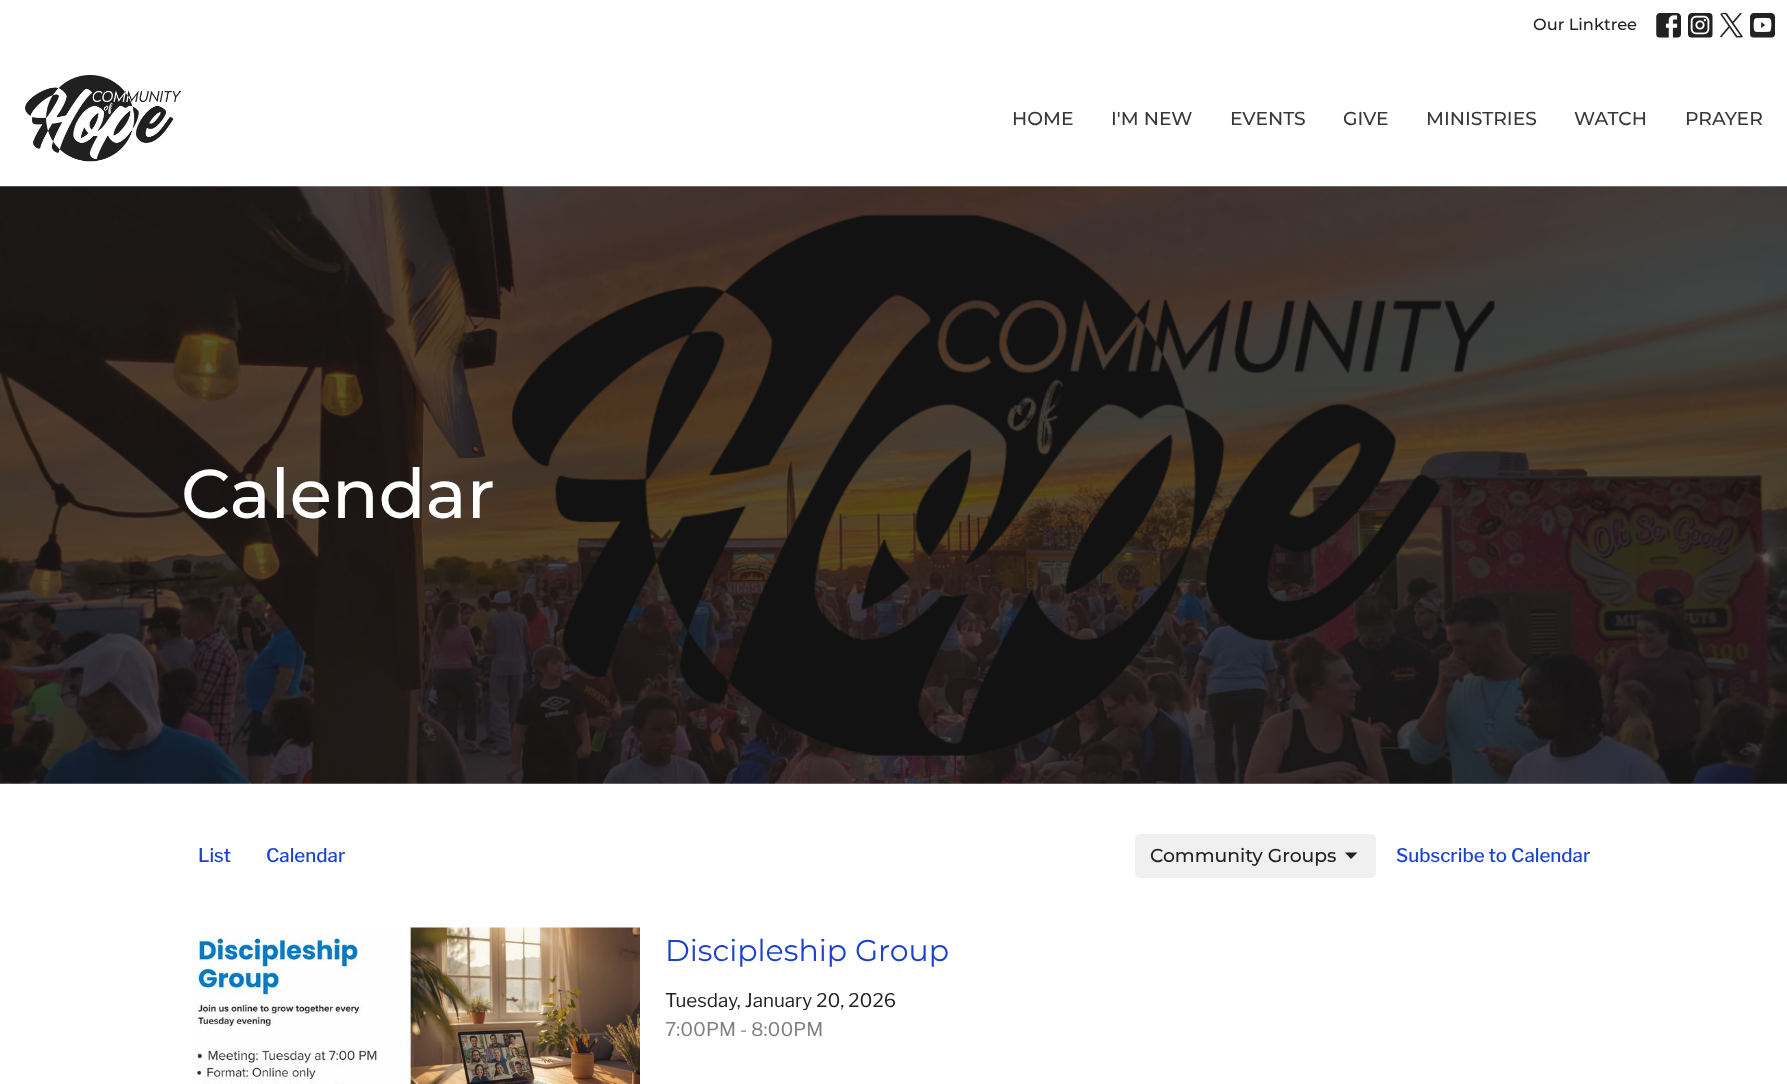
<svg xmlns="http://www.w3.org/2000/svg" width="1787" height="1084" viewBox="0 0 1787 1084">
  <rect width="100%" height="100%" fill="rgb(255,255,255)"/>
  <text x="1533" y="30" font-family="Montserrat" font-size="16.25" font-weight="500" fill="rgb(34,34,34)">Our Linktree</text>
  <image x="1656" y="13" width="25" height="25" href="pic1.png"/>
  <image x="1688" y="13" width="25" height="25" href="pic2.png"/>
  <image x="1719" y="13" width="24" height="25" href="pic3.png"/>
  <image x="1750" y="13" width="25" height="25" href="pic4.png"/>
  <image x="25" y="75" width="157" height="87" href="pic5.png"/>
  <g font-family="Montserrat" font-size="18.75" font-weight="500" fill="rgb(56,56,56)">
    <text x="1012" y="125">HOME</text>
    <text x="1111" y="125">I'M NEW</text>
    <text x="1230" y="125">EVENTS</text>
    <text x="1343" y="125">GIVE</text>
    <text x="1426" y="125">MINISTRIES</text>
    <text x="1574" y="125">WATCH</text>
    <text x="1685" y="125">PRAYER</text>
  </g>
  <image x="0" y="186" width="1787" height="598" href="pic6.png"/>
  <text x="181" y="518" font-family="Montserrat" font-size="68.75" font-weight="500" fill="rgb(255,255,255)">Calendar</text>
  <g font-family="Libre Franklin" font-size="18.75" font-weight="500" fill="rgb(27,66,203)">
    <text x="198" y="862">List</text>
    <text x="266" y="862">Calendar</text>
  </g>
  <rect x="1135" y="834" width="241" height="44" rx="5" fill="rgb(240,240,240)"/>
  <text x="1150" y="862" font-family="Montserrat" font-size="18.75" font-weight="500" fill="rgb(34,34,34)">Community Groups</text>
  <path d="M1345 852.5L1351 859L1357.5 852.5Z" fill="rgb(34,34,34)"/>
  <text x="1396" y="862" font-family="Libre Franklin" font-size="18.75" font-weight="500" fill="rgb(27,66,203)">Subscribe to Calendar</text>
  <image x="192" y="927" width="448" height="157" href="pic7.png"/>
  <text x="665" y="961" font-family="Montserrat" font-size="30" fill="rgb(27,66,203)">Discipleship Group</text>
  <text x="665" y="1007" font-family="Libre Franklin" font-size="18.75" fill="rgb(34,34,34)">Tuesday, January 20, 2026</text>
  <text x="665" y="1036" font-family="Libre Franklin" font-size="18.75" fill="rgb(128,128,128)">7:00PM - 8:00PM</text>
</svg>
